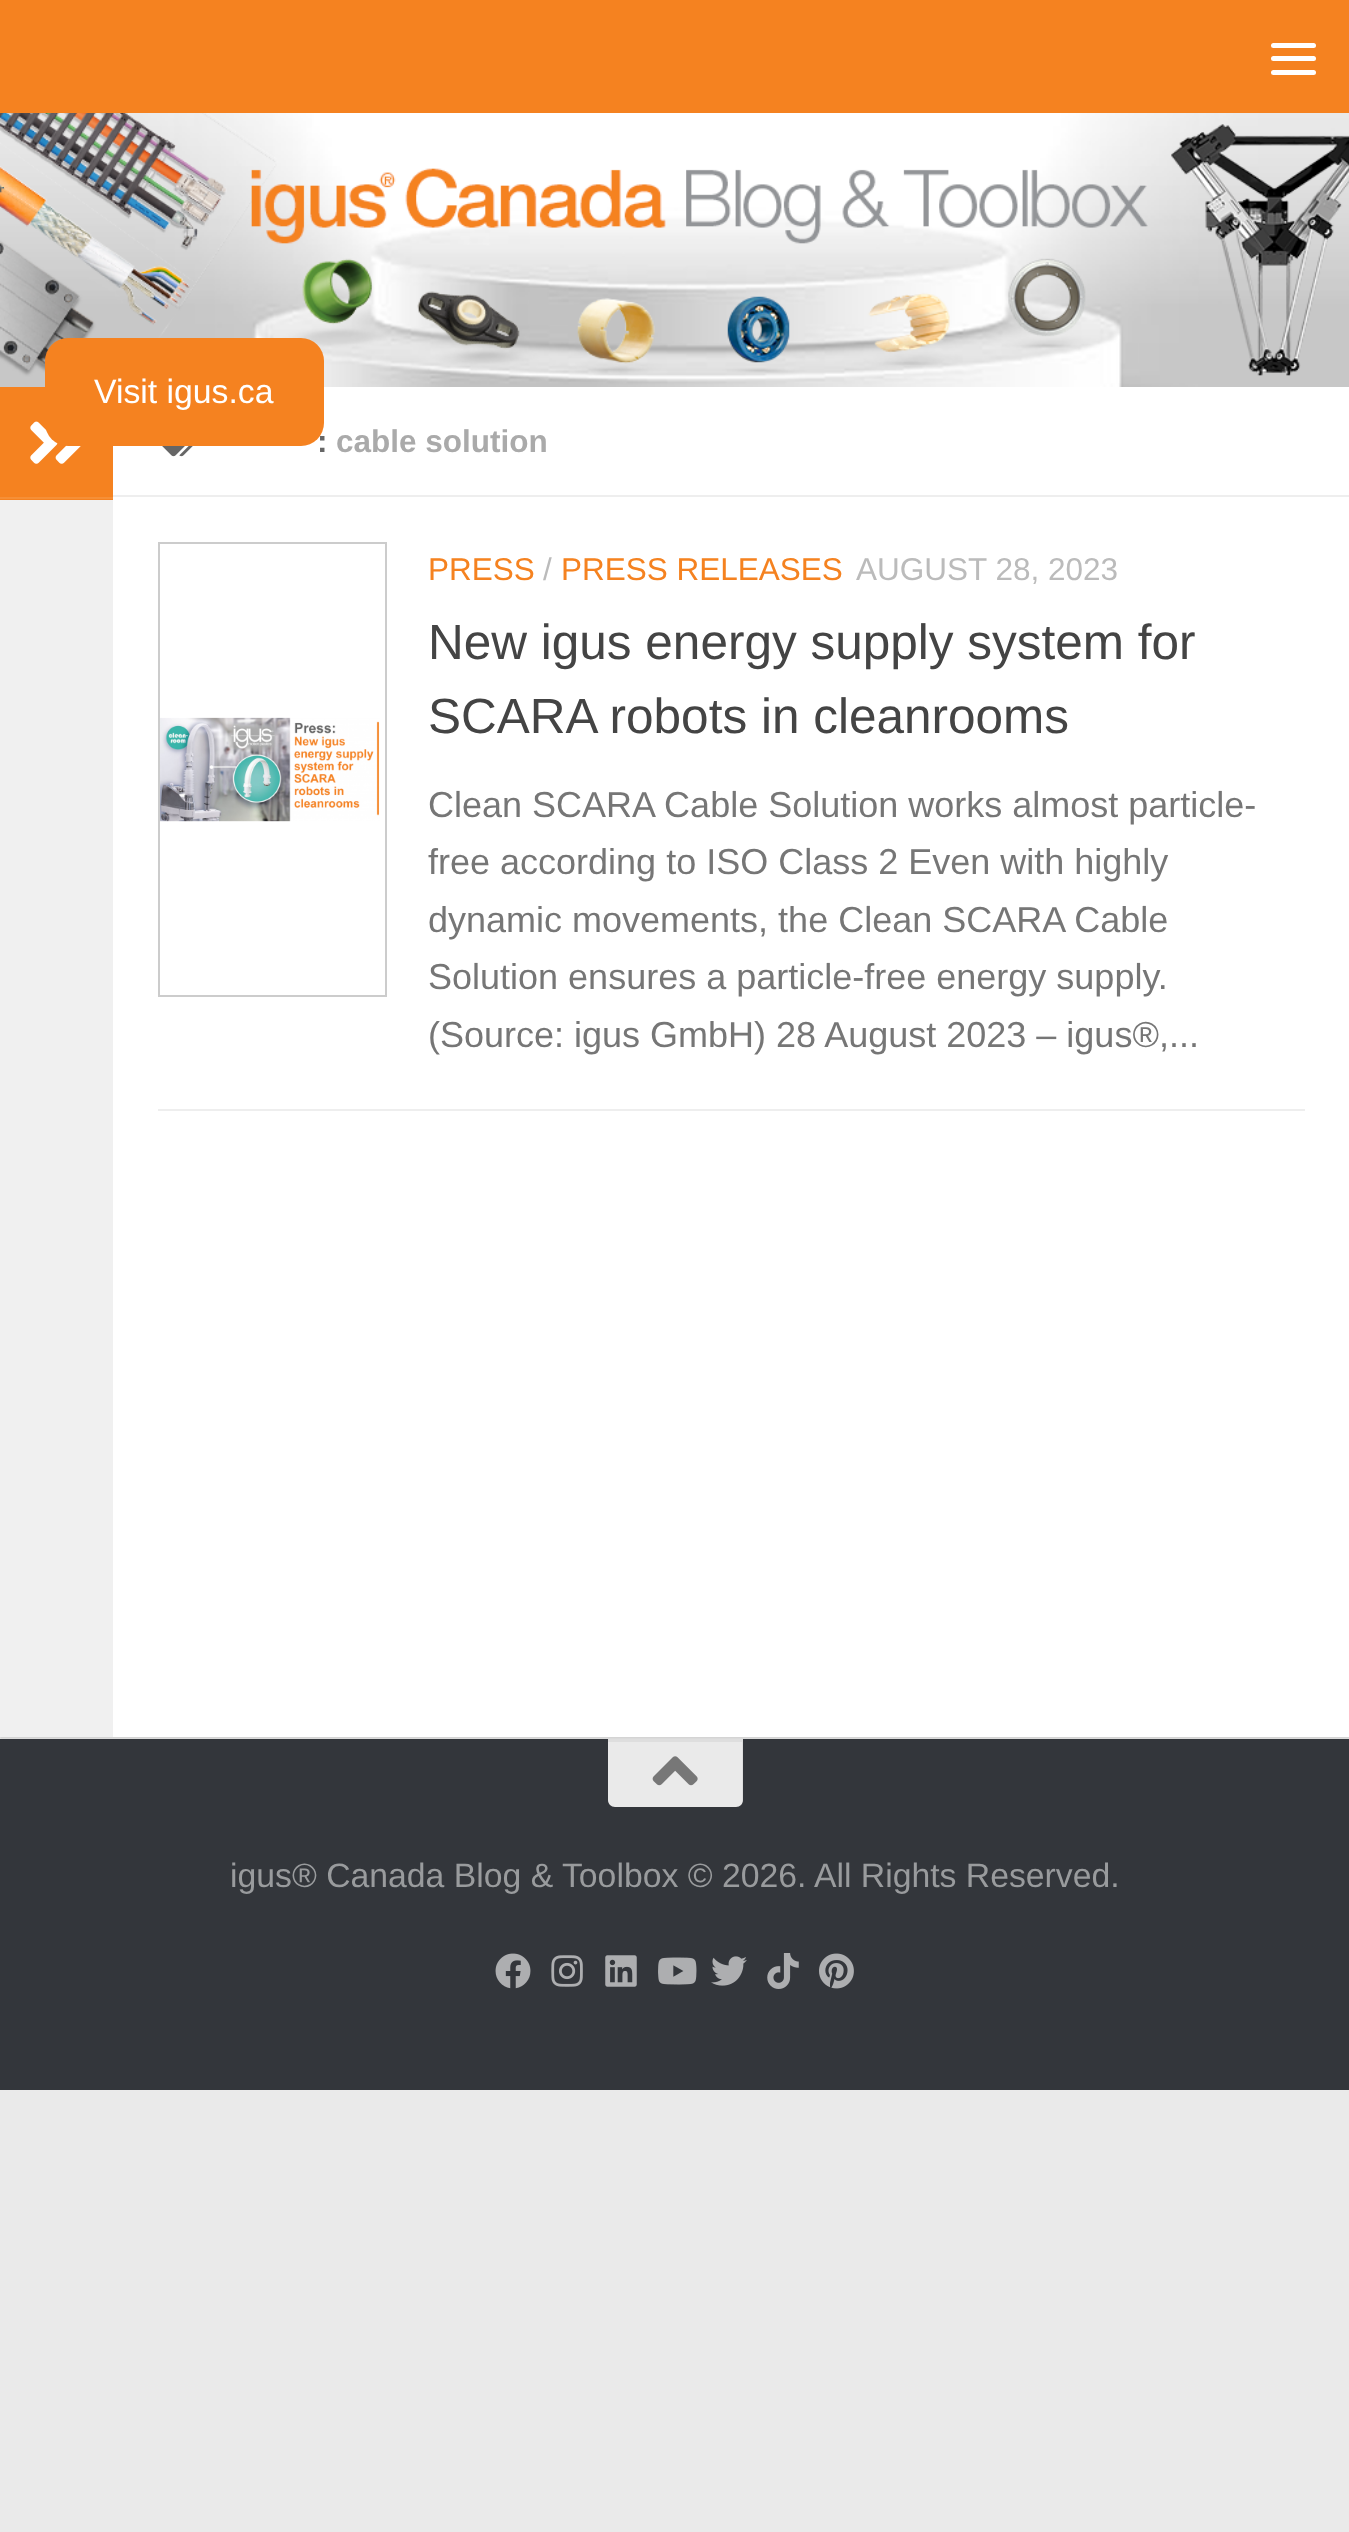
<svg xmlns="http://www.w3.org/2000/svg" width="1349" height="2532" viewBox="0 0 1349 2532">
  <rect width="100%" height="100%" fill="rgb(234,234,234)"/>
  <rect x="0" y="0" width="1349" height="113" fill="rgb(245,130,32)"/>
  <rect x="1271" y="43" width="45" height="5" rx="2.5" fill="rgb(255,255,255)"/>
  <rect x="1271" y="56" width="45" height="5" rx="2.5" fill="rgb(255,255,255)"/>
  <rect x="1271" y="70" width="45" height="5" rx="2.5" fill="rgb(255,255,255)"/>
  <rect x="0" y="389" width="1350" height="1350" fill="rgba(0,0,0,0.1)" filter="blur(1px)"/>
  <image x="0" y="113" width="1349" height="274" href="pic1.png"/>
  <rect x="113" y="387" width="1236" height="1350" fill="rgb(255,255,255)"/>
  <rect x="0" y="387" width="113" height="113" fill="rgb(245,130,32)"/>
  <image x="30" y="421" width="51" height="43" href="pic2.png"/>
  <text x="317" y="452" font-family="Liberation Sans" font-size="31.5" font-weight="bold" fill="rgb(102,102,102)">:</text>
  <rect x="45" y="338" width="279" height="108" rx="23" fill="rgb(245,130,32)"/>
  <text x="94" y="403" font-family="Liberation Sans" font-size="33.75" fill="rgb(255,255,255)">Visit igus.ca</text>
  <rect x="0" y="500" width="113" height="1237" fill="rgb(240,240,240)"/>
  <rect x="0" y="497" width="113" height="2" fill="rgb(246,143,54)"/>
  <rect x="113" y="495" width="1236" height="2" fill="rgb(238,238,238)"/>
  <image x="162" y="446" width="31" height="11" href="pic3.png"/>
  <text x="336" y="452" font-family="Liberation Sans" font-size="31.5" font-weight="bold" fill="rgb(170,170,170)">cable solution</text>
  <rect x="158" y="1109" width="1147" height="2" fill="rgb(238,238,238)"/>
  <image x="160" y="717" width="220" height="105" href="pic4.png"/>
  <rect x="159" y="543" width="227" height="453" fill="none" stroke="rgb(204,204,204)" stroke-width="2"/>
  <text x="428" y="580" font-family="Liberation Sans" font-size="31.5" fill="rgb(245,130,32)">PRESS</text>
  <text x="543" y="580" font-family="Liberation Sans" font-size="31.5" fill="rgb(187,187,187)">/</text>
  <text x="561" y="580" font-family="Liberation Sans" font-size="31.5" fill="rgb(245,130,32)">PRESS RELEASES</text>
  <text x="856" y="580" font-family="Liberation Sans" font-size="31.5" fill="rgb(187,187,187)">AUGUST 28, 2023</text>
  <g font-family="Liberation Sans" font-size="49.5" fill="rgb(68,68,68)">
    <text>
      <tspan x="428" y="659">New igus energy supply system for</tspan>
      <tspan x="428" y="733">SCARA robots in cleanrooms</tspan>
    </text>
  </g>
  <g font-family="Liberation Sans" font-size="36" fill="rgb(118,118,118)">
    <text>
      <tspan x="428" y="817">Clean SCARA Cable Solution works almost particle-</tspan>
      <tspan x="428" y="874">free according to ISO Class 2 Even with highly</tspan>
      <tspan x="428" y="932">dynamic movements, the Clean SCARA Cable</tspan>
      <tspan x="428" y="989">Solution ensures a particle-free energy supply.</tspan>
      <tspan x="428" y="1047">(Source: igus GmbH) 28 August 2023 – igus®,...</tspan>
    </text>
  </g>
  <rect x="0" y="1739" width="1349" height="351" fill="rgb(51,54,59)"/>
  <path d="M608 1739H743V1800C743 1804 740 1807 736 1807H615C611 1807 608 1804 608 1800Z" fill="rgb(234,234,234)"/>
  <path d="M608 1742H742V1804C743 1803 743 1801 743 1800V1739H608Z" fill="rgba(0,0,0,0.05)"/>
  <image x="652" y="1756" width="46" height="30" href="pic5.png"/>
  <text x="230" y="1887" font-family="Liberation Sans" font-size="33.75" fill="rgb(153,155,157)">igus® Canada Blog &amp; Toolbox © 2026. All Rights Reserved.</text>
  <image x="495" y="1953" width="36" height="36" href="pic6.png"/>
  <image x="551" y="1955" width="32" height="32" href="pic7.png"/>
  <image x="605" y="1955" width="32" height="32" href="pic8.png"/>
  <image x="658" y="1957" width="39" height="28" href="pic9.png"/>
  <image x="711" y="1956" width="36" height="30" href="pic10.png"/>
  <image x="767" y="1953" width="32" height="36" href="pic11.png"/>
  <image x="819" y="1953" width="35" height="36" href="pic12.png"/>
</svg>
